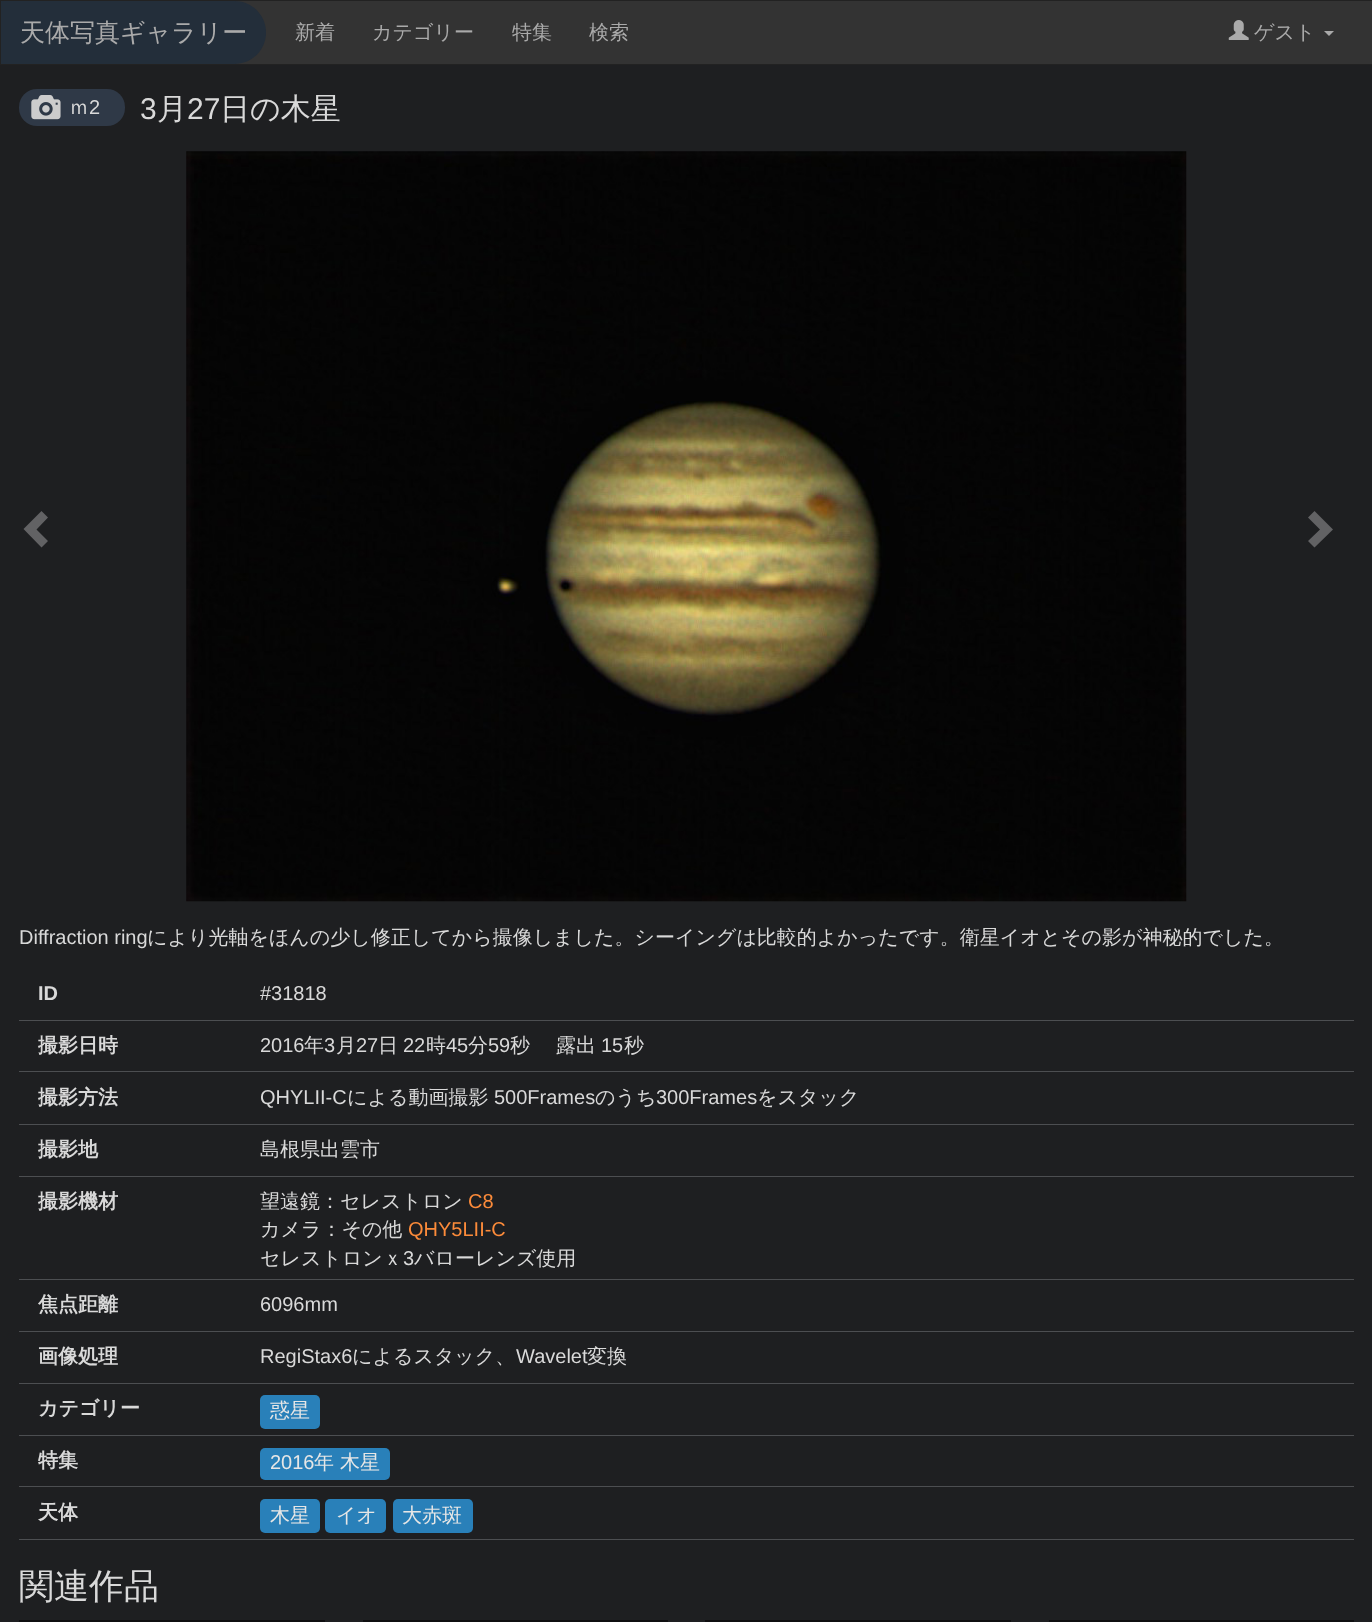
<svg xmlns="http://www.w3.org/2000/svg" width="1372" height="1622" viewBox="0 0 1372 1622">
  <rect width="100%" height="100%" fill="rgb(30,31,33)"/>
  <rect x="235" y="1" width="1137" height="63" fill="rgb(51,51,51)"/>
  <rect x="0.5" y="0.5" width="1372" height="64" fill="none" stroke="rgb(34,34,34)"/>
  <path d="M1 1H234.5C252 1 266 15 266 32.5C266 50 252 64 234.5 64H1Z" fill="rgb(35,46,58)"/>
  <text x="20" y="41" font-family="WenQuanYi Zen Hei" font-size="25" font-weight="500" fill="rgb(170,170,170)">天体写真ギャラリー</text>
  <g font-family="WenQuanYi Zen Hei" font-size="20" font-weight="500" fill="rgb(170,170,170)">
    <text x="295" y="39">新着</text>
    <text x="372" y="39">カテゴリー</text>
    <text x="512" y="39">特集</text>
    <text x="589" y="39">検索</text>
  </g>
  <image x="1228" y="20" width="21" height="20" href="pic1.png"/>
  <text x="1254" y="39" font-family="WenQuanYi Zen Hei" font-size="20" font-weight="500" fill="rgb(170,170,170)">ゲスト</text>
  <path d="M1324 31H1334L1329 36Z" fill="rgb(170,170,170)"/>
  <rect x="19" y="89" width="106" height="37" rx="18" fill="rgb(47,57,71)"/>
  <image x="31" y="95" width="30" height="25" href="pic2.png"/>
  <text x="69" y="114" font-family="WenQuanYi Zen Hei" font-size="20" font-weight="500" fill="rgb(217,217,217)">ｍ</text>
  <text x="89" y="114" font-family="Liberation Sans" font-size="20" fill="rgb(217,217,217)">2</text>
  <text x="140" y="119" font-family="Liberation Sans" font-size="30" fill="rgb(217,217,217)">3</text>
  <text x="157" y="119" font-family="WenQuanYi Zen Hei" font-size="30" font-weight="500" fill="rgb(217,217,217)">月</text>
  <text x="187" y="119" font-family="Liberation Sans" font-size="30" fill="rgb(217,217,217)">27</text>
  <text x="220" y="119" font-family="WenQuanYi Zen Hei" font-size="30" font-weight="500" fill="rgb(217,217,217)">日の木星</text>
  <path d="M48 517.5L36.5 529.5L48 541L41.5 547.5L23.5 529L41.5 511Z" fill="rgb(98,98,100)"/>
  <image x="186" y="151" width="1001" height="751" href="pic3.png"/>
  <path d="M1333 529.5L1314.5 547.5L1308 541L1320 529.5L1308 517.5L1314.5 511Z" fill="rgb(98,98,100)"/>
  <text x="19" y="944" font-family="Liberation Sans" font-size="20" fill="rgb(217,217,217)">Diffraction ring</text>
  <text x="147" y="944" font-family="WenQuanYi Zen Hei" font-size="20" font-weight="500" fill="rgb(217,217,217)">により光軸をほんの少し修正してから撮像しました。シーイングは比較的よかったです。衛星イオとその影が神秘的でした。</text>
  <rect x="19" y="1020" width="1335" height="1" fill="rgb(76,78,81)"/>
  <text x="38" y="1000" font-family="Liberation Sans" font-size="20" font-weight="bold" fill="rgb(217,217,217)">ID</text>
  <text x="260" y="1000" font-family="Liberation Sans" font-size="20" fill="rgb(217,217,217)">#31818</text>
  <rect x="19" y="1071" width="1335" height="1" fill="rgb(76,78,81)"/>
  <text x="38" y="1052" font-family="WenQuanYi Zen Hei" font-size="20" font-weight="bold" fill="rgb(217,217,217)">撮影日時</text>
  <text x="260" y="1052" font-family="Liberation Sans" font-size="20" fill="rgb(217,217,217)">2016</text>
  <text x="304" y="1052" font-family="WenQuanYi Zen Hei" font-size="20" font-weight="500" fill="rgb(217,217,217)">年</text>
  <text x="324" y="1052" font-family="Liberation Sans" font-size="20" fill="rgb(217,217,217)">3</text>
  <text x="336" y="1052" font-family="WenQuanYi Zen Hei" font-size="20" font-weight="500" fill="rgb(217,217,217)">月</text>
  <text x="356" y="1052" font-family="Liberation Sans" font-size="20" fill="rgb(217,217,217)">27</text>
  <text x="378" y="1052" font-family="WenQuanYi Zen Hei" font-size="20" font-weight="500" fill="rgb(217,217,217)">日</text>
  <text x="403" y="1052" font-family="Liberation Sans" font-size="20" fill="rgb(217,217,217)">22</text>
  <text x="426" y="1052" font-family="WenQuanYi Zen Hei" font-size="20" font-weight="500" fill="rgb(217,217,217)">時</text>
  <text x="446" y="1052" font-family="Liberation Sans" font-size="20" fill="rgb(217,217,217)">45</text>
  <text x="468" y="1052" font-family="WenQuanYi Zen Hei" font-size="20" font-weight="500" fill="rgb(217,217,217)">分</text>
  <text x="488" y="1052" font-family="Liberation Sans" font-size="20" fill="rgb(217,217,217)">59</text>
  <g font-family="WenQuanYi Zen Hei" font-size="20" font-weight="500" fill="rgb(217,217,217)">
    <text x="510" y="1052">秒</text>
    <text x="556" y="1052">露出</text>
  </g>
  <text x="601" y="1052" font-family="Liberation Sans" font-size="20" fill="rgb(217,217,217)">15</text>
  <text x="624" y="1052" font-family="WenQuanYi Zen Hei" font-size="20" font-weight="500" fill="rgb(217,217,217)">秒</text>
  <rect x="19" y="1124" width="1335" height="1" fill="rgb(76,78,81)"/>
  <text x="38" y="1104" font-family="WenQuanYi Zen Hei" font-size="20" font-weight="bold" fill="rgb(217,217,217)">撮影方法</text>
  <text x="260" y="1104" font-family="Liberation Sans" font-size="20" fill="rgb(217,217,217)">QHYLII-C</text>
  <text x="347" y="1104" font-family="WenQuanYi Zen Hei" font-size="20" font-weight="500" fill="rgb(217,217,217)">による動画撮影</text>
  <text x="494" y="1104" font-family="Liberation Sans" font-size="20" fill="rgb(217,217,217)">500Frames</text>
  <text x="595" y="1104" font-family="WenQuanYi Zen Hei" font-size="20" font-weight="500" fill="rgb(217,217,217)">のうち</text>
  <text x="656" y="1104" font-family="Liberation Sans" font-size="20" fill="rgb(217,217,217)">300Frames</text>
  <text x="757" y="1104" font-family="WenQuanYi Zen Hei" font-size="20" font-weight="500" fill="rgb(217,217,217)">をスタック</text>
  <rect x="19" y="1176" width="1335" height="1" fill="rgb(76,78,81)"/>
  <text x="38" y="1156" font-family="WenQuanYi Zen Hei" font-size="20" font-weight="bold" fill="rgb(217,217,217)">撮影地</text>
  <text x="260" y="1156" font-family="WenQuanYi Zen Hei" font-size="20" font-weight="500" fill="rgb(217,217,217)">島根県出雲市</text>
  <rect x="19" y="1279" width="1335" height="1" fill="rgb(76,78,81)"/>
  <text x="38" y="1208" font-family="WenQuanYi Zen Hei" font-size="20" font-weight="bold" fill="rgb(217,217,217)">撮影機材</text>
  <text x="260" y="1208" font-family="WenQuanYi Zen Hei" font-size="20" font-weight="500" fill="rgb(217,217,217)">望遠鏡：セレストロン</text>
  <text x="468" y="1208" font-family="Liberation Sans" font-size="20" fill="rgb(252,139,58)">C8</text>
  <text x="260" y="1236" font-family="WenQuanYi Zen Hei" font-size="20" font-weight="500" fill="rgb(217,217,217)">カメラ：その他</text>
  <text x="408" y="1236" font-family="Liberation Sans" font-size="20" fill="rgb(252,139,58)">QHY5LII-C</text>
  <text x="260" y="1265" font-family="WenQuanYi Zen Hei" font-size="20" font-weight="500" fill="rgb(217,217,217)">セレストロンｘ</text>
  <text x="403" y="1265" font-family="Liberation Sans" font-size="20" fill="rgb(217,217,217)">3</text>
  <text x="414" y="1265" font-family="WenQuanYi Zen Hei" font-size="20" font-weight="500" fill="rgb(217,217,217)">バローレンズ使用</text>
  <rect x="19" y="1331" width="1335" height="1" fill="rgb(76,78,81)"/>
  <text x="38" y="1311" font-family="WenQuanYi Zen Hei" font-size="20" font-weight="bold" fill="rgb(217,217,217)">焦点距離</text>
  <text x="260" y="1311" font-family="Liberation Sans" font-size="20" fill="rgb(217,217,217)">6096mm</text>
  <rect x="19" y="1383" width="1335" height="1" fill="rgb(76,78,81)"/>
  <text x="38" y="1363" font-family="WenQuanYi Zen Hei" font-size="20" font-weight="bold" fill="rgb(217,217,217)">画像処理</text>
  <text x="260" y="1363" font-family="Liberation Sans" font-size="20" fill="rgb(217,217,217)">RegiStax6</text>
  <text x="352" y="1363" font-family="WenQuanYi Zen Hei" font-size="20" font-weight="500" fill="rgb(217,217,217)">によるスタック、</text>
  <text x="516" y="1363" font-family="Liberation Sans" font-size="20" fill="rgb(217,217,217)">Wavelet</text>
  <text x="587" y="1363" font-family="WenQuanYi Zen Hei" font-size="20" font-weight="500" fill="rgb(217,217,217)">変換</text>
  <rect x="19" y="1435" width="1335" height="1" fill="rgb(76,78,81)"/>
  <text x="38" y="1415" font-family="WenQuanYi Zen Hei" font-size="20" font-weight="bold" fill="rgb(217,217,217)">カテゴリー</text>
  <rect x="260" y="1395" width="60" height="34" rx="5" fill="rgb(41,128,185)"/>
  <text x="270" y="1417" font-family="WenQuanYi Zen Hei" font-size="20" font-weight="500" fill="rgb(230,230,230)">惑星</text>
  <rect x="19" y="1486" width="1335" height="1" fill="rgb(76,78,81)"/>
  <text x="38" y="1467" font-family="WenQuanYi Zen Hei" font-size="20" font-weight="bold" fill="rgb(217,217,217)">特集</text>
  <rect x="260" y="1448" width="130" height="32" rx="5" fill="rgb(41,128,185)"/>
  <text x="270" y="1469" font-family="Liberation Sans" font-size="20" fill="rgb(230,230,230)">2016</text>
  <text x="314" y="1469" font-family="WenQuanYi Zen Hei" font-size="20" font-weight="500" fill="rgb(230,230,230)">年 木星</text>
  <rect x="19" y="1539" width="1335" height="1" fill="rgb(76,78,81)"/>
  <text x="38" y="1519" font-family="WenQuanYi Zen Hei" font-size="20" font-weight="bold" fill="rgb(217,217,217)">天体</text>
  <rect x="260" y="1499" width="60" height="34" rx="5" fill="rgb(41,128,185)"/>
  <text x="270" y="1522" font-family="WenQuanYi Zen Hei" font-size="20" font-weight="500" fill="rgb(230,230,230)">木星</text>
  <rect x="325" y="1499" width="61" height="34" rx="5" fill="rgb(41,128,185)"/>
  <text x="336" y="1522" font-family="WenQuanYi Zen Hei" font-size="20" font-weight="500" fill="rgb(230,230,230)">イオ</text>
  <rect x="393" y="1499" width="80" height="34" rx="5" fill="rgb(41,128,185)"/>
  <text x="402" y="1522" font-family="WenQuanYi Zen Hei" font-size="20" font-weight="500" fill="rgb(230,230,230)">大赤斑</text>
  <text x="19" y="1598" font-family="WenQuanYi Zen Hei" font-size="35" font-weight="500" fill="rgb(217,217,217)">関連作品</text>
  <rect x="19" y="1620" width="306" height="2" fill="rgb(15,15,16)"/>
  <rect x="363" y="1620" width="305" height="2" fill="rgb(15,15,16)"/>
  <rect x="705" y="1620" width="306" height="2" fill="rgb(15,15,16)"/>
  <rect x="1049" y="1620" width="305" height="2" fill="rgb(15,15,16)"/>
</svg>
